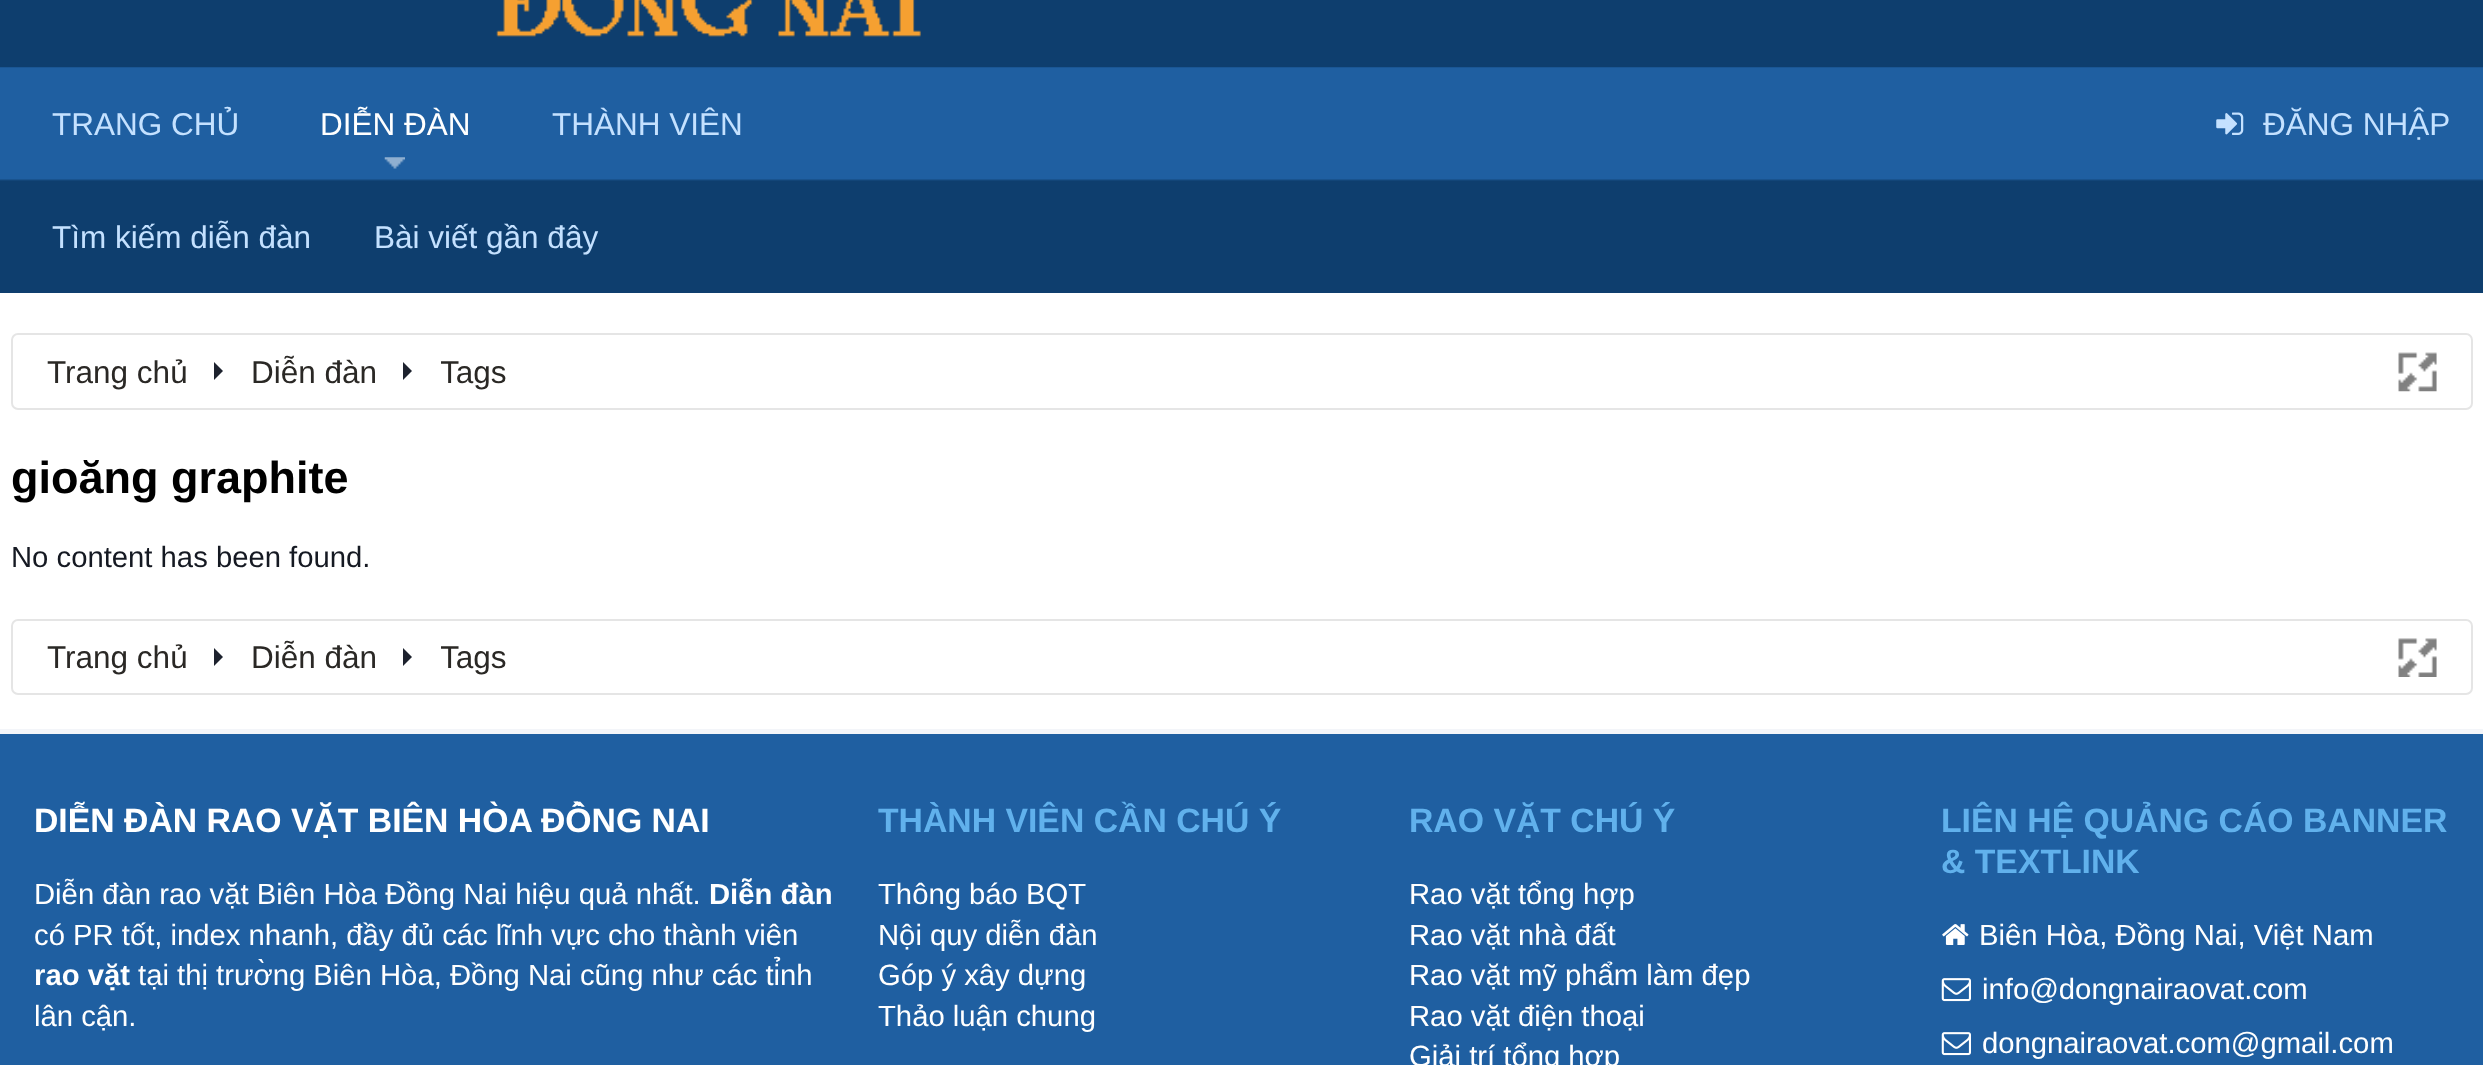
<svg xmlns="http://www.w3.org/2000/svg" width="2483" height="1065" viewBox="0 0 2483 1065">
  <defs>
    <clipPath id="clip1"><rect x="441" y="335" width="65" height="72"/></clipPath>
    <clipPath id="clip2"><rect x="441" y="621" width="65" height="72"/></clipPath>
  </defs>
  <rect width="100%" height="100%" fill="rgb(255,255,255)"/>
  <rect x="0" y="0" width="2483" height="293" fill="rgb(14,62,110)"/>
  <image x="496" y="0" width="425" height="37" href="pic1.png"/>
  <image x="0" y="67" width="2483" height="114" href="pic2.png"/>
  <text x="52" y="135" font-family="Liberation Sans" font-size="31.5" fill="rgb(196,225,255)">TRANG CHỦ</text>
  <image x="384" y="157" width="21" height="12" href="pic3.png"/>
  <text x="320" y="135" font-family="Liberation Sans" font-size="31.5" fill="rgb(255,255,255)">DIỄN ĐÀN</text>
  <g font-family="Liberation Sans" font-size="31.5" fill="rgb(196,225,255)">
    <text x="52" y="248">Tìm kiếm diễn đàn</text>
    <text x="374" y="248">Bài viết gần đây</text>
    <text x="552" y="135">THÀNH VIÊN</text>
  </g>
  <image x="2216" y="112" width="28" height="23" href="pic4.png"/>
  <text x="2263" y="135" font-family="Liberation Sans" font-size="31.5" fill="rgb(196,225,255)">ĐĂNG NHẬP</text>
  <rect x="12" y="334" width="2460" height="75" rx="6" fill="none" stroke="rgb(229,229,229)" stroke-width="2"/>
  <text x="47" y="383" font-family="Liberation Sans" font-size="31.5" fill="rgb(42,40,37)">Trang chủ</text>
  <path d="M214 380V362L223 371Z" fill="rgb(29,34,46)"/>
  <text x="251" y="383" font-family="Liberation Sans" font-size="31.5" fill="rgb(42,40,37)">Diễn đàn</text>
  <path d="M403 380V362L412 371Z" fill="rgb(29,34,46)"/>
  <g clip-path="url(#clip1)">
    <text x="440" y="383" font-family="Liberation Sans" font-size="31.5" fill="rgb(42,40,37)">Tags</text>
  </g>
  <image x="2398" y="352" width="39" height="40" href="pic5.png"/>
  <text x="11" y="493" font-family="Liberation Sans" font-size="45" font-weight="bold" fill="rgb(0,0,0)">gioăng graphite</text>
  <text x="11" y="567" font-family="Liberation Sans" font-size="29.25" fill="rgb(21,25,34)">No content has been found.</text>
  <rect x="12" y="620" width="2460" height="74" rx="6" fill="none" stroke="rgb(229,229,229)" stroke-width="2"/>
  <text x="47" y="668" font-family="Liberation Sans" font-size="31.5" fill="rgb(42,40,37)">Trang chủ</text>
  <path d="M214 666V648L223 657Z" fill="rgb(29,34,46)"/>
  <text x="251" y="668" font-family="Liberation Sans" font-size="31.5" fill="rgb(42,40,37)">Diễn đàn</text>
  <path d="M403 666V648L412 657Z" fill="rgb(29,34,46)"/>
  <g clip-path="url(#clip2)">
    <text x="440" y="668" font-family="Liberation Sans" font-size="31.5" fill="rgb(42,40,37)">Tags</text>
  </g>
  <image x="2398" y="638" width="39" height="39" href="pic6.png"/>
  <rect x="0" y="734" width="2483" height="331" fill="rgb(31,95,161)"/>
  <rect x="0" y="729" width="2483" height="5" fill="rgb(243,245,249)"/>
  <text x="34" y="832" font-family="Liberation Sans" font-size="33.75" font-weight="bold" fill="rgb(255,255,255)">DIỄN ĐÀN RAO VẶT BIÊN HÒA ĐỒNG NAI</text>
  <text x="34" y="904" font-family="Liberation Sans" font-size="29.25" fill="rgb(255,255,255)">Diễn đàn rao vặt Biên Hòa Đồng Nai hiệu quả nhất.</text>
  <text x="709" y="904" font-family="Liberation Sans" font-size="29.25" font-weight="bold" fill="rgb(255,255,255)">Diễn đàn</text>
  <text x="34" y="945" font-family="Liberation Sans" font-size="29.25" fill="rgb(255,255,255)">có PR tốt, index nhanh, đầy đủ các lĩnh vực cho thành viên</text>
  <text x="34" y="985" font-family="Liberation Sans" font-size="29.25" font-weight="bold" fill="rgb(255,255,255)">rao vặt</text>
  <g font-family="Liberation Sans" font-size="29.25" fill="rgb(255,255,255)">
    <text x="138" y="985">tại thị trường Biên Hòa, Đồng Nai cũng như các tỉnh</text>
    <text x="34" y="1026">lân cận.</text>
  </g>
  <text x="878" y="832" font-family="Liberation Sans" font-size="33.75" font-weight="bold" fill="rgb(97,177,236)">THÀNH VIÊN CẦN CHÚ Ý</text>
  <g font-family="Liberation Sans" font-size="29.25" fill="rgb(255,255,255)">
    <text>
      <tspan x="878" y="904">Thông báo BQT</tspan>
      <tspan x="878" y="945">Nội quy diễn đàn</tspan>
      <tspan x="878" y="985">Góp ý xây dựng</tspan>
      <tspan x="878" y="1026">Thảo luận chung</tspan>
    </text>
  </g>
  <text x="1409" y="832" font-family="Liberation Sans" font-size="33.75" font-weight="bold" fill="rgb(97,177,236)">RAO VẶT CHÚ Ý</text>
  <g font-family="Liberation Sans" font-size="29.25" fill="rgb(255,255,255)">
    <text>
      <tspan x="1409" y="904">Rao vặt tổng hợp</tspan>
      <tspan x="1409" y="945">Rao vặt nhà đất</tspan>
      <tspan x="1409" y="985">Rao vặt mỹ phẩm làm đẹp</tspan>
      <tspan x="1409" y="1026">Rao vặt điện thoại</tspan>
      <tspan x="1409" y="1066">Giải trí tổng hợp</tspan>
    </text>
  </g>
  <g font-family="Liberation Sans" font-size="33.75" font-weight="bold" fill="rgb(97,177,236)">
    <text>
      <tspan x="1941" y="832">LIÊN HỆ QUẢNG CÁO BANNER</tspan>
      <tspan x="1941" y="873">&amp; TEXTLINK</tspan>
    </text>
  </g>
  <image x="1942" y="924" width="27" height="21" href="pic7.png"/>
  <text x="1979" y="945" font-family="Liberation Sans" font-size="29.25" fill="rgb(255,255,255)">Biên Hòa, Đồng Nai, Việt Nam</text>
  <image x="1941" y="978" width="30" height="24" href="pic8.png"/>
  <text x="1982" y="999" font-family="Liberation Sans" font-size="29.25" fill="rgb(255,255,255)">info@dongnairaovat.com</text>
  <image x="1941" y="1032" width="30" height="24" href="pic8.png"/>
  <text x="1982" y="1053" font-family="Liberation Sans" font-size="29.25" fill="rgb(255,255,255)">dongnairaovat.com@gmail.com</text>
</svg>
